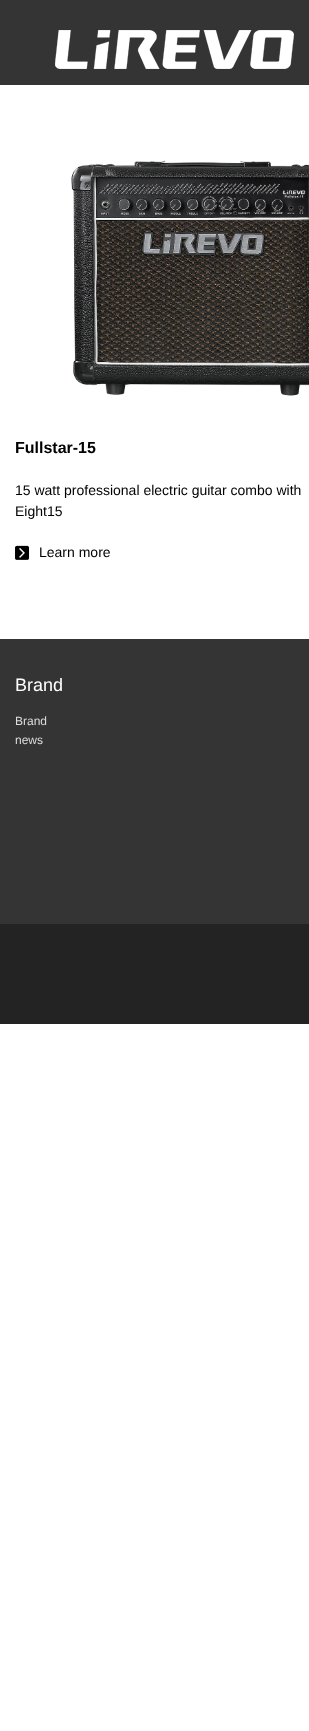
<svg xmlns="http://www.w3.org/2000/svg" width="309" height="1731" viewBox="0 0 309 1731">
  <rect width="100%" height="100%" fill="rgb(255,255,255)"/>
  <rect x="0" y="0" width="309" height="85" fill="rgb(52,52,52)"/>
  <image x="55" y="30" width="239" height="39" href="pic1.png"/>
  <image x="71" y="160" width="238" height="236" href="pic2.png"/>
  <text x="15" y="453" font-family="Liberation Sans" font-size="16" font-weight="bold" fill="rgb(0,0,0)">Fullstar-15</text>
  <g font-family="Liberation Sans" font-size="14" fill="rgb(0,0,0)">
    <text>
      <tspan x="15" y="495">15 watt professional electric guitar combo with</tspan>
      <tspan x="15" y="516">Eight15</tspan>
    </text>
  </g>
  <image x="15" y="545" width="14" height="15" href="pic3.png"/>
  <text x="39" y="557" font-family="Liberation Sans" font-size="14" fill="rgb(0,0,0)">Learn more</text>
  <rect x="0" y="639" width="309" height="285" fill="rgb(52,52,52)"/>
  <text x="15" y="691" font-family="Liberation Sans" font-size="18" fill="rgb(255,255,255)">Brand</text>
  <g font-family="Liberation Sans" font-size="12" fill="rgb(221,221,221)">
    <text>
      <tspan x="15" y="725">Brand</tspan>
      <tspan x="15" y="744">news</tspan>
    </text>
  </g>
  <rect x="0" y="924" width="309" height="100" fill="rgb(35,35,35)"/>
</svg>
